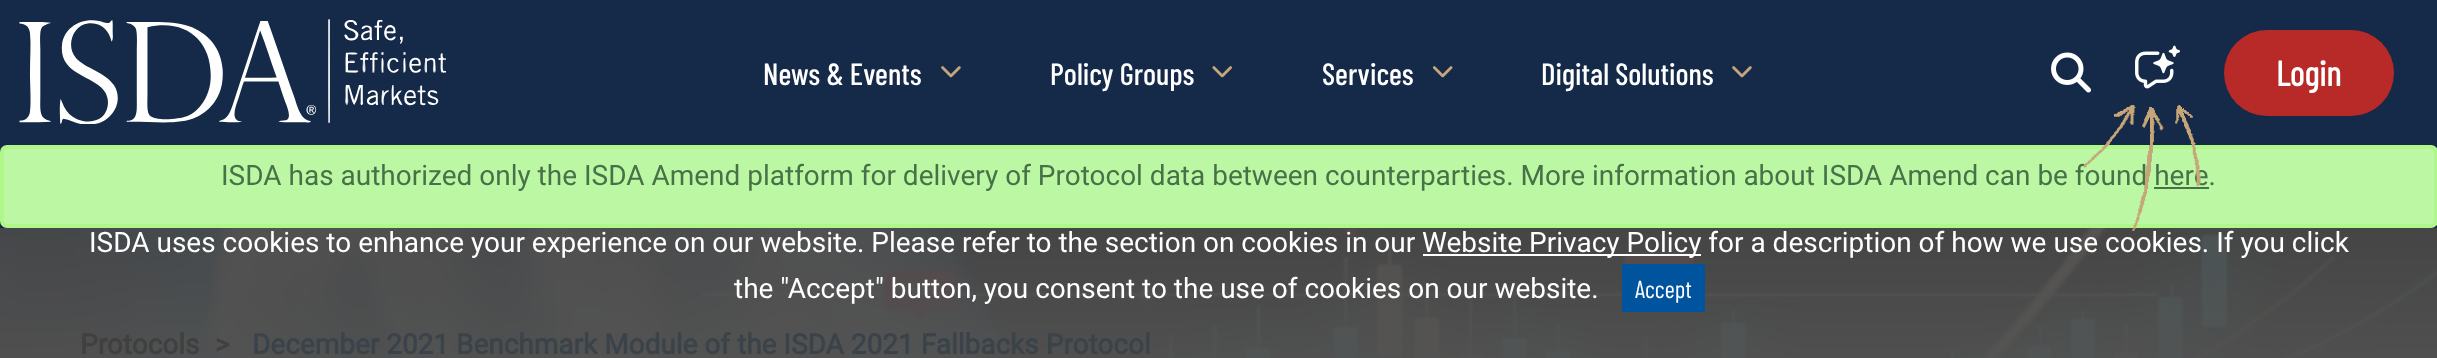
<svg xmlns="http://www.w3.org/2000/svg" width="2437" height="358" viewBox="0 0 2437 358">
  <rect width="100%" height="100%" fill="rgb(255,255,255)"/>
  <rect x="0" y="0" width="2437" height="228" fill="rgb(21,42,72)"/>
  <image x="19" y="19" width="427" height="105" href="pic1.png"/>
  <text x="763" y="85" font-family="Barlow Condensed" font-size="30.75" font-weight="500" fill="rgb(255,255,255)">News &amp; Events</text>
  <image x="941" y="66" width="20" height="12" href="pic2.png"/>
  <text x="1050" y="85" font-family="Barlow Condensed" font-size="30.75" font-weight="500" fill="rgb(255,255,255)">Policy Groups</text>
  <image x="1212" y="66" width="20" height="12" href="pic3.png"/>
  <text x="1322" y="85" font-family="Barlow Condensed" font-size="30.75" font-weight="500" fill="rgb(255,255,255)">Services</text>
  <image x="1432" y="66" width="21" height="12" href="pic4.png"/>
  <text x="1541" y="85" font-family="Barlow Condensed" font-size="30.75" font-weight="500" fill="rgb(255,255,255)">Digital Solutions</text>
  <image x="1732" y="66" width="20" height="12" href="pic2.png"/>
  <image x="2051" y="52" width="40" height="41" href="pic5.png"/>
  <image x="2135" y="45" width="45" height="44" href="pic6.png"/>
  <rect x="2" y="147" width="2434" height="79" rx="5" fill="rgb(188,247,163)" stroke="rgb(175,247,138)" stroke-width="4"/>
  <text x="221" y="185" font-family="Roboto" font-size="28" fill="rgb(71,114,73)">ISDA has authorized only the ISDA Amend platform for delivery of Protocol data between counterparties. More information about ISDA Amend can be found here.</text>
  <rect x="2154" y="187" width="55" height="2" fill="rgb(71,114,73)"/>
  <image x="0" y="228" width="2437" height="130" href="pic8.png"/>
  <rect x="1423" y="254" width="278" height="2" fill="rgb(255,255,255)"/>
  <text x="1422" y="252" font-family="Roboto" font-size="28" fill="rgb(255,255,255)">Website Privacy Policy for a description of how we use cookies. If you click</text>
  <image x="2083" y="105" width="118" height="126" href="pic7.png"/>
  <rect x="2224" y="30" width="170" height="86" rx="43" fill="rgb(183,42,40)"/>
  <text x="2276" y="86" font-family="Barlow Condensed" font-size="35" font-weight="bold" fill="rgb(255,255,255)">Login</text>
  <g font-family="Roboto" font-size="28" fill="rgb(255,255,255)">
    <text x="89" y="252">ISDA uses cookies to enhance your experience on our website. Please refer to the section on cookies in our</text>
    <text x="734" y="298">the "Accept" button, you consent to the use of cookies on our website.</text>
  </g>
  <rect x="1622" y="264" width="83" height="48" fill="rgb(0,84,158)"/>
  <text x="1635" y="298" font-family="Barlow Condensed" font-size="24.5" fill="rgb(255,255,255)">Accept</text>
  <g font-family="Roboto" font-size="28" font-weight="bold" fill="rgb(64,64,64)">
    <text x="80" y="354">Protocols</text>
    <text x="215" y="354">&gt;</text>
  </g>
  <text x="252" y="354" font-family="Roboto" font-size="28" font-weight="bold" fill="rgb(59,67,74)">December 2021 Benchmark Module of the ISDA 2021 Fallbacks Protocol</text>
</svg>
